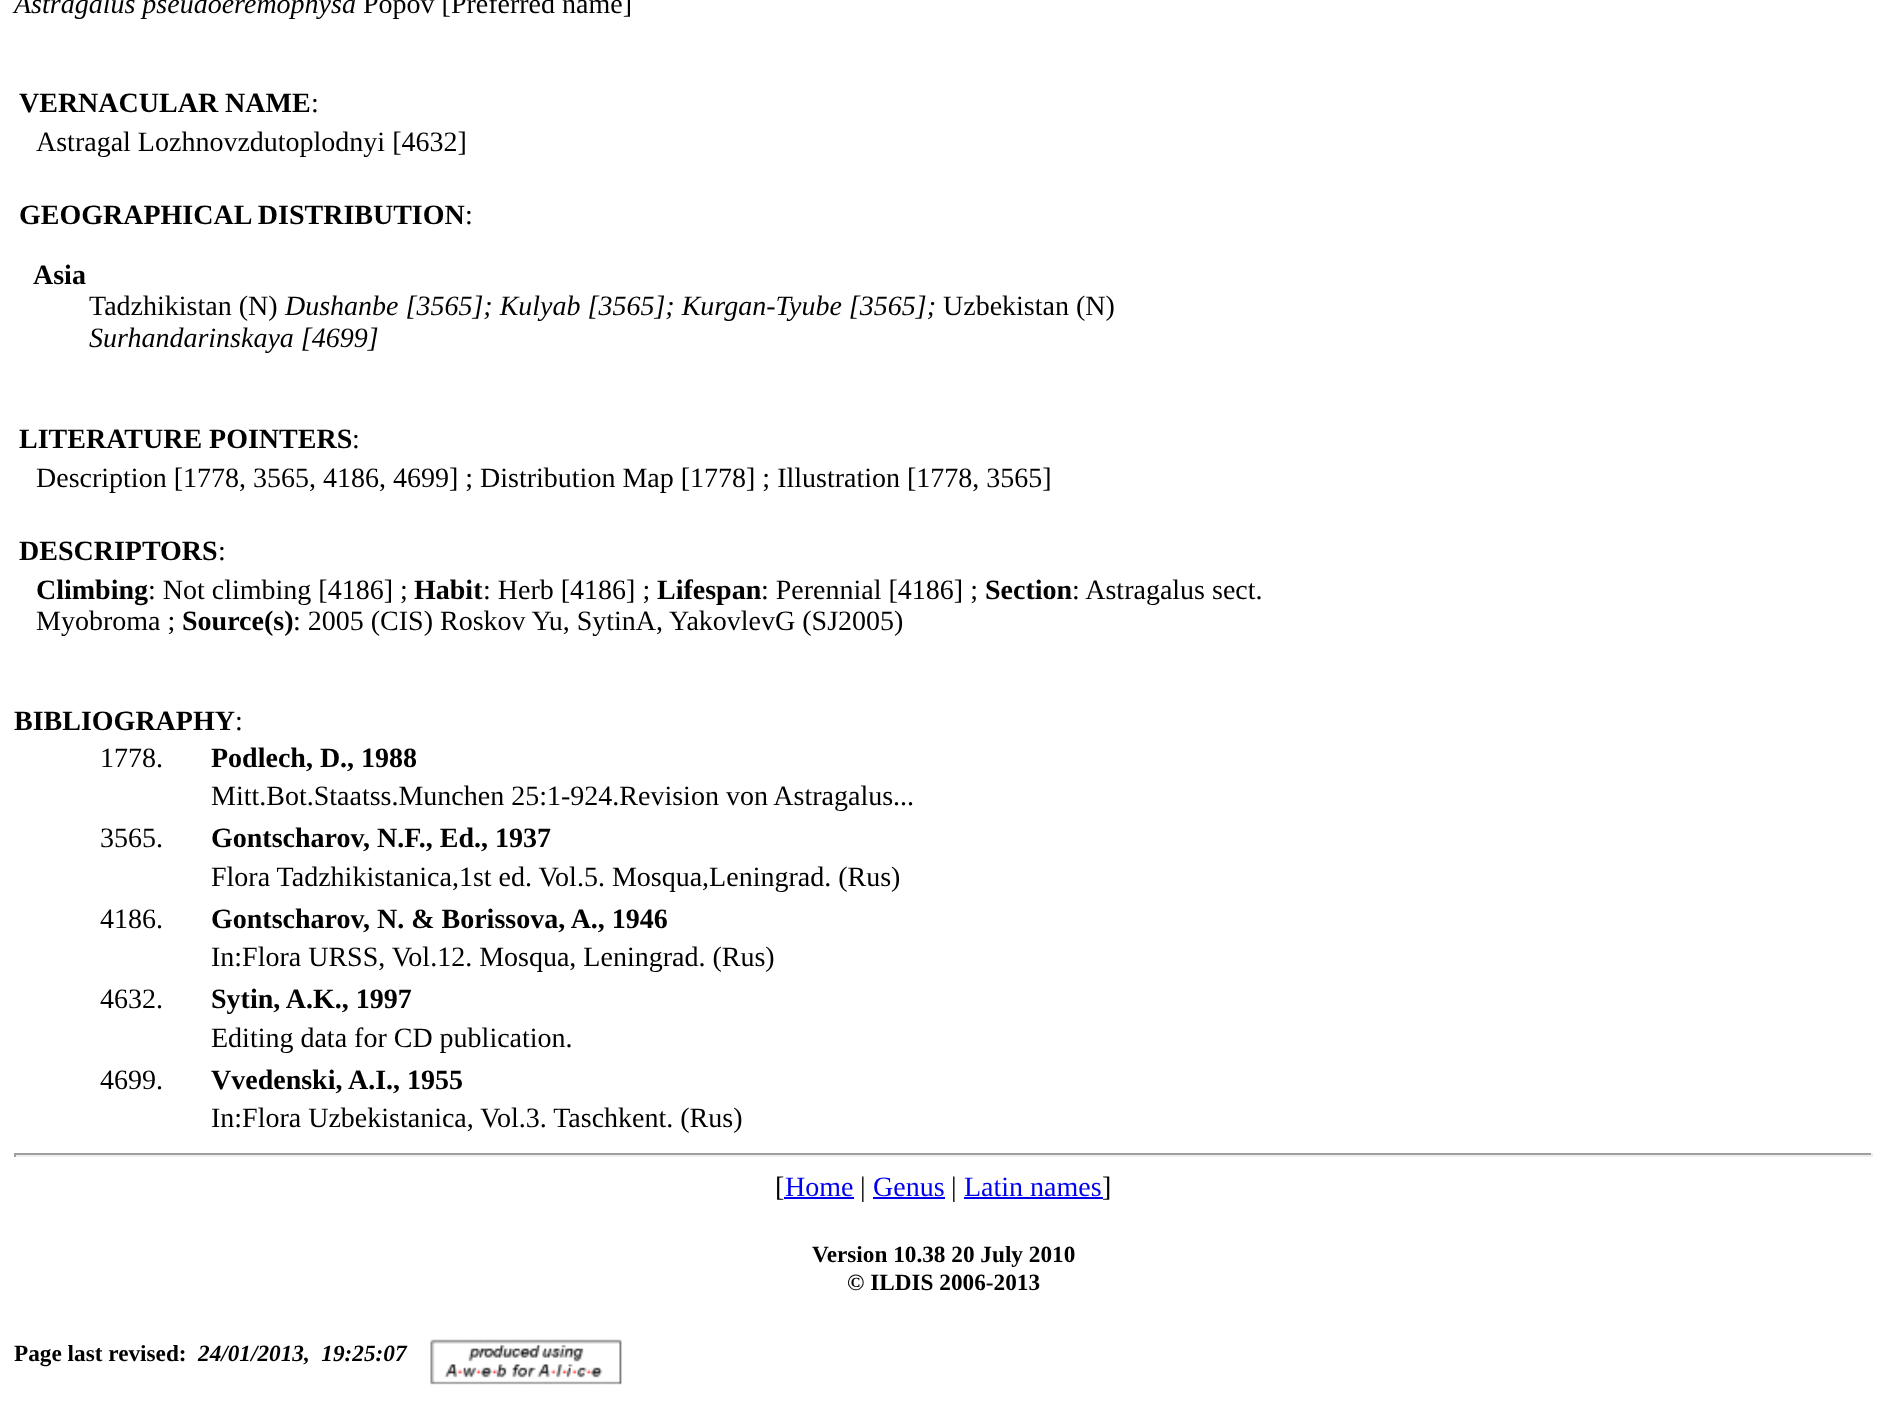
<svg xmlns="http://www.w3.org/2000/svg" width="1885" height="1423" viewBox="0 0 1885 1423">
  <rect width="100%" height="100%" fill="rgb(255,255,255)"/>
  <text x="14" y="13" font-family="Liberation Serif" font-size="28" font-style="italic" fill="rgb(0,0,0)">Astragalus pseudoeremophysa</text>
  <text x="363" y="13" font-family="Liberation Serif" font-size="28" fill="rgb(0,0,0)">Popov [Preferred name]</text>
  <text x="19" y="112" font-family="Liberation Serif" font-size="28" font-weight="bold" fill="rgb(0,0,0)">VERNACULAR NAME</text>
  <g font-family="Liberation Serif" font-size="28" fill="rgb(0,0,0)">
    <text x="311" y="112">:</text>
    <text x="36" y="151">Astragal Lozhnovzdutoplodnyi [4632]</text>
  </g>
  <text x="19" y="224" font-family="Liberation Serif" font-size="28" font-weight="bold" fill="rgb(0,0,0)">GEOGRAPHICAL DISTRIBUTION</text>
  <text x="465" y="224" font-family="Liberation Serif" font-size="28" fill="rgb(0,0,0)">:</text>
  <text x="33" y="284" font-family="Liberation Serif" font-size="28" font-weight="bold" fill="rgb(0,0,0)">Asia</text>
  <text x="89" y="315" font-family="Liberation Serif" font-size="28" fill="rgb(0,0,0)">Tadzhikistan (N)</text>
  <text x="285" y="315" font-family="Liberation Serif" font-size="28" font-style="italic" fill="rgb(0,0,0)">Dushanbe [3565]; Kulyab [3565]; Kurgan-Tyube [3565];</text>
  <text x="943" y="315" font-family="Liberation Serif" font-size="28" fill="rgb(0,0,0)">Uzbekistan (N)</text>
  <text x="89" y="347" font-family="Liberation Serif" font-size="28" font-style="italic" fill="rgb(0,0,0)">Surhandarinskaya [4699]</text>
  <text x="19" y="448" font-family="Liberation Serif" font-size="28" font-weight="bold" fill="rgb(0,0,0)">LITERATURE POINTERS</text>
  <g font-family="Liberation Serif" font-size="28" fill="rgb(0,0,0)">
    <text x="352" y="448">:</text>
    <text x="36" y="487">Description [1778, 3565, 4186, 4699] ; Distribution Map [1778] ; Illustration [1778, 3565]</text>
  </g>
  <text x="19" y="560" font-family="Liberation Serif" font-size="28" font-weight="bold" fill="rgb(0,0,0)">DESCRIPTORS</text>
  <text x="218" y="560" font-family="Liberation Serif" font-size="28" fill="rgb(0,0,0)">:</text>
  <text x="36" y="599" font-family="Liberation Serif" font-size="28" font-weight="bold" fill="rgb(0,0,0)">Climbing</text>
  <text x="148" y="599" font-family="Liberation Serif" font-size="28" fill="rgb(0,0,0)">: Not climbing [4186] ;</text>
  <text x="414" y="599" font-family="Liberation Serif" font-size="28" font-weight="bold" fill="rgb(0,0,0)">Habit</text>
  <text x="483" y="599" font-family="Liberation Serif" font-size="28" fill="rgb(0,0,0)">: Herb [4186] ;</text>
  <text x="657" y="599" font-family="Liberation Serif" font-size="28" font-weight="bold" fill="rgb(0,0,0)">Lifespan</text>
  <text x="761" y="599" font-family="Liberation Serif" font-size="28" fill="rgb(0,0,0)">: Perennial [4186] ;</text>
  <text x="985" y="599" font-family="Liberation Serif" font-size="28" font-weight="bold" fill="rgb(0,0,0)">Section</text>
  <g font-family="Liberation Serif" font-size="28" fill="rgb(0,0,0)">
    <text x="1072" y="599">: Astragalus sect.</text>
    <text x="36" y="630">Myobroma ;</text>
  </g>
  <text x="182" y="630" font-family="Liberation Serif" font-size="28" font-weight="bold" fill="rgb(0,0,0)">Source(s)</text>
  <text x="293" y="630" font-family="Liberation Serif" font-size="28" fill="rgb(0,0,0)">: 2005 (CIS) Roskov Yu, SytinA, YakovlevG (SJ2005)</text>
  <text x="14" y="730" font-family="Liberation Serif" font-size="28" font-weight="bold" fill="rgb(0,0,0)">BIBLIOGRAPHY</text>
  <g font-family="Liberation Serif" font-size="28" fill="rgb(0,0,0)">
    <text x="235" y="730">:</text>
    <text x="100" y="767">1778.</text>
  </g>
  <text x="211" y="767" font-family="Liberation Serif" font-size="28" font-weight="bold" fill="rgb(0,0,0)">Podlech, D., 1988</text>
  <g font-family="Liberation Serif" font-size="28" fill="rgb(0,0,0)">
    <text x="211" y="805">Mitt.Bot.Staatss.Munchen 25:1-924.Revision von Astragalus...</text>
    <text x="100" y="847">3565.</text>
  </g>
  <text x="211" y="847" font-family="Liberation Serif" font-size="28" font-weight="bold" fill="rgb(0,0,0)">Gontscharov, N.F., Ed., 1937</text>
  <g font-family="Liberation Serif" font-size="28" fill="rgb(0,0,0)">
    <text x="211" y="886">Flora Tadzhikistanica,1st ed. Vol.5. Mosqua,Leningrad. (Rus)</text>
    <text x="100" y="928">4186.</text>
  </g>
  <text x="211" y="928" font-family="Liberation Serif" font-size="28" font-weight="bold" fill="rgb(0,0,0)">Gontscharov, N. &amp; Borissova, A., 1946</text>
  <g font-family="Liberation Serif" font-size="28" fill="rgb(0,0,0)">
    <text x="211" y="966">In:Flora URSS, Vol.12. Mosqua, Leningrad. (Rus)</text>
    <text x="100" y="1008">4632.</text>
  </g>
  <text x="211" y="1008" font-family="Liberation Serif" font-size="28" font-weight="bold" fill="rgb(0,0,0)">Sytin, A.K., 1997</text>
  <g font-family="Liberation Serif" font-size="28" fill="rgb(0,0,0)">
    <text x="211" y="1047">Editing data for CD publication.</text>
    <text x="100" y="1089">4699.</text>
  </g>
  <text x="211" y="1089" font-family="Liberation Serif" font-size="28" font-weight="bold" fill="rgb(0,0,0)">Vvedenski, A.I., 1955</text>
  <text x="211" y="1127" font-family="Liberation Serif" font-size="28" fill="rgb(0,0,0)">In:Flora Uzbekistanica, Vol.3. Taschkent. (Rus)</text>
  <rect x="14" y="1153" width="1859" height="2" fill="rgb(159,159,159)"/>
  <rect x="1871" y="1153" width="2" height="4" fill="rgb(238,238,238)"/>
  <rect x="14" y="1155" width="1859" height="2" fill="rgb(238,238,238)"/>
  <rect x="14" y="1153" width="2" height="4" fill="rgb(159,159,159)"/>
  <text x="775" y="1196" font-family="Liberation Serif" font-size="28" fill="rgb(0,0,0)">[</text>
  <text x="785" y="1196" font-family="Liberation Serif" font-size="28" fill="rgb(0,0,238)">Home</text>
  <rect x="784" y="1197" width="70" height="2" fill="rgb(0,0,238)"/>
  <text x="860" y="1196" font-family="Liberation Serif" font-size="28" fill="rgb(0,0,0)">|</text>
  <text x="873" y="1196" font-family="Liberation Serif" font-size="28" fill="rgb(0,0,238)">Genus</text>
  <rect x="873" y="1197" width="72" height="2" fill="rgb(0,0,238)"/>
  <text x="951" y="1196" font-family="Liberation Serif" font-size="28" fill="rgb(0,0,0)">|</text>
  <text x="964" y="1196" font-family="Liberation Serif" font-size="28" fill="rgb(0,0,238)">Latin names</text>
  <rect x="964" y="1197" width="139" height="2" fill="rgb(0,0,238)"/>
  <text x="1102" y="1196" font-family="Liberation Serif" font-size="28" fill="rgb(0,0,0)">]</text>
  <g font-family="Liberation Serif" font-size="23.25" font-weight="bold" fill="rgb(0,0,0)">
    <text x="812" y="1262">Version 10.38 20 July 2010</text>
    <text x="847" y="1290">© ILDIS 2006-2013</text>
    <text x="14" y="1361">Page last revised:</text>
  </g>
  <text x="198" y="1361" font-family="Liberation Serif" font-size="23.25" font-weight="bold" font-style="italic" fill="rgb(0,0,0)" xml:space="preserve">24/01/2013,  19:25:07</text>
  <image x="430" y="1339" width="192" height="46" href="pic1.png"/>
</svg>
